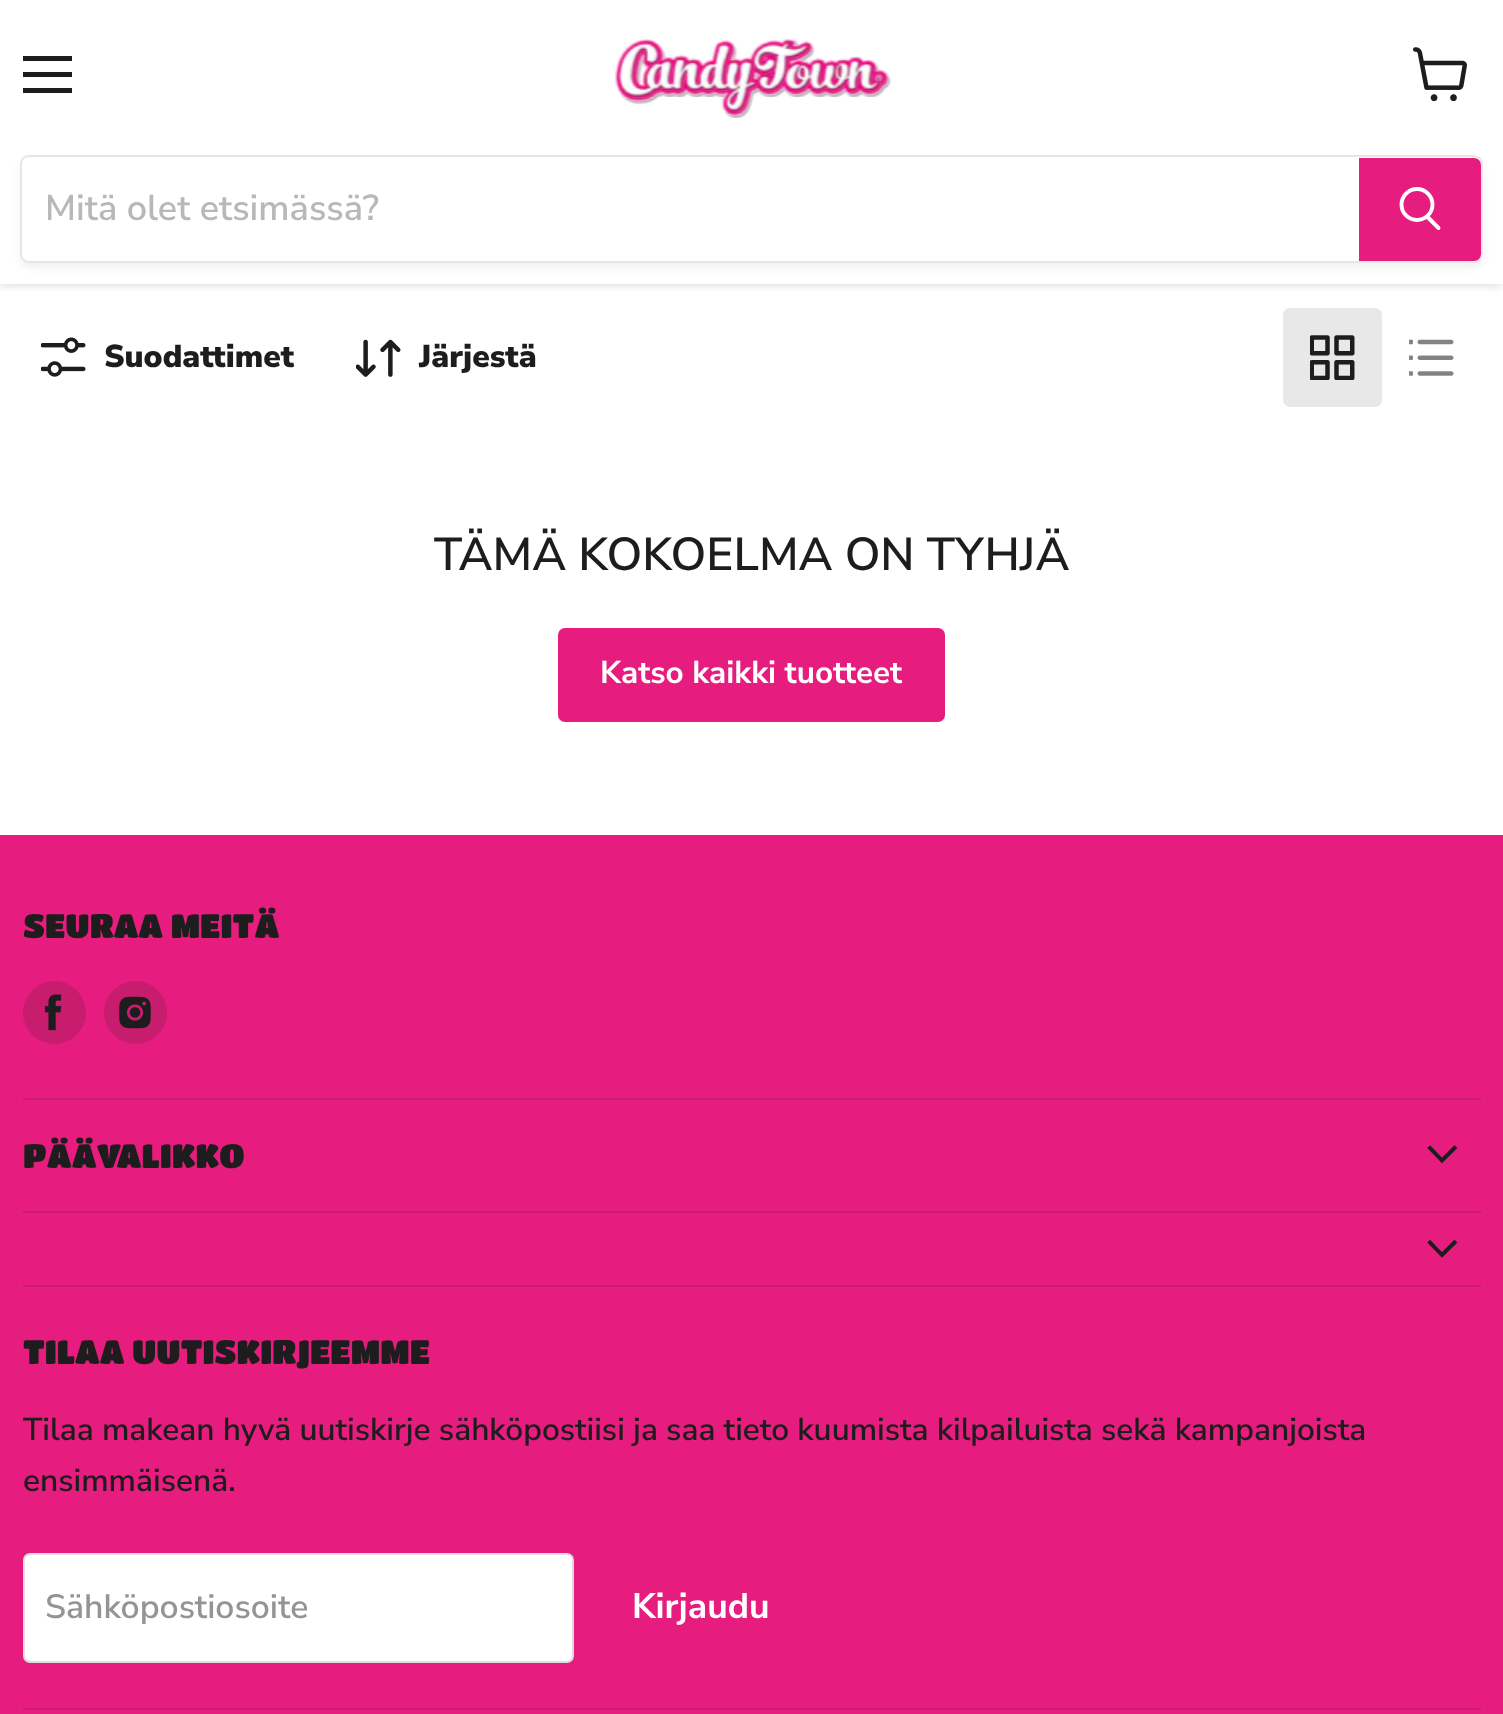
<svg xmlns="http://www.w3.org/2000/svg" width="1503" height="1714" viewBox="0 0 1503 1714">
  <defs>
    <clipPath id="clip1"><path d="M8 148H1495V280H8ZM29 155H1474C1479 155 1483 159 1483 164V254C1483 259 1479 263 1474 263H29C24 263 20 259 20 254V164C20 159 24 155 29 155Z" clip-rule="evenodd"/></clipPath>
  </defs>
  <rect width="100%" height="100%" fill="rgb(255,255,255)"/>
  <rect x="0" y="2" width="1503" height="284" fill="rgba(128,128,128,0.25)" filter="blur(4.5px)"/>
  <rect x="0" y="0" width="1503" height="284" fill="rgb(255,255,255)"/>
  <rect x="23" y="56" width="49" height="5" fill="rgb(29,29,29)"/>
  <rect x="23" y="72" width="49" height="5" fill="rgb(29,29,29)"/>
  <rect x="23" y="88" width="49" height="5" fill="rgb(29,29,29)"/>
  <image x="1413" y="47" width="54" height="54" href="pic1.png"/>
  <image x="614" y="39" width="277" height="79" href="pic2.png"/>
  <g clip-path="url(#clip1)">
    <rect x="20" y="160" width="1463" height="108" rx="9" fill="rgba(128,128,128,0.11)" filter="blur(3.5px)"/>
  </g>
  <rect x="21" y="156" width="1461" height="106" rx="8" fill="none" stroke="rgba(128,128,128,0.2)" stroke-width="2"/>
  <text x="45" y="220" font-family="Nunito Sans" font-size="36" font-weight="600" fill="rgb(184,184,184)">Mitä olet etsimässä?</text>
  <path d="M1360 159H1474C1477.5 159 1480 161.5 1480 165V254C1480 257.5 1477.5 260 1474 260H1360Z" fill="rgb(230,28,126)" stroke="rgb(230,28,126)" stroke-width="2"/>
  <path d="M1438.5 228L1427.5 217" fill="none" stroke="rgb(255,255,255)" stroke-width="3.9" stroke-linecap="round"/>
  <circle cx="1417" cy="204.5" r="15.5" fill="none" stroke="rgb(255,255,255)" stroke-width="3.9"/>
  <image x="41" y="337" width="45" height="40" href="pic3.png"/>
  <text x="104" y="367" font-family="Nunito Sans" font-size="31.65" font-weight="900" fill="rgb(29,29,29)">Suodattimet</text>
  <image x="356" y="339" width="45" height="38" href="pic4.png"/>
  <text x="419" y="367" font-family="Nunito Sans" font-size="31.65" font-weight="900" fill="rgb(29,29,29)">Järjestä</text>
  <rect x="1283" y="308" width="99" height="99" rx="7" fill="rgb(232,232,232)"/>
  <image x="1310" y="335" width="45" height="45" href="pic5.png"/>
  <image x="1409" y="339" width="45" height="37" href="pic6.png"/>
  <text x="434" y="570" font-family="Nunito Sans" font-size="46.1" font-weight="600" fill="rgb(29,29,29)">TÄMÄ KOKOELMA ON TYHJÄ</text>
  <rect x="559" y="629" width="385" height="92" rx="6" fill="rgb(230,28,126)" stroke="rgb(230,28,126)" stroke-width="2"/>
  <text x="600" y="683" font-family="Nunito Sans" font-size="31.5" font-weight="bold" fill="rgb(255,255,255)">Katso kaikki tuotteet</text>
  <rect x="0" y="835" width="1503" height="879" fill="rgb(230,28,126)"/>
  <rect x="23" y="1098" width="1458" height="2" fill="rgb(200,28,111)"/>
  <text x="23" y="938" font-family="Titan One" font-size="33.5" fill="rgb(29,29,29)">SEURAA MEITÄ</text>
  <circle cx="54.5" cy="1012.5" r="31.5" fill="rgb(200,28,111)"/>
  <image x="45" y="994" width="17" height="37" href="pic7.png"/>
  <circle cx="135.5" cy="1012.5" r="31.5" fill="rgb(200,28,111)"/>
  <image x="119" y="996" width="32" height="33" href="pic8.png"/>
  <rect x="23" y="1211" width="1458" height="2" fill="rgb(200,28,111)"/>
  <text x="23" y="1168" font-family="Titan One" font-size="33.5" fill="rgb(29,29,29)">PÄÄVALIKKO</text>
  <path d="M1442 1160.5L1454.5 1148M1442 1160.5L1430 1148" fill="none" stroke="rgb(29,29,29)" stroke-width="3.9" stroke-linecap="square"/>
  <rect x="23" y="1285" width="1458" height="2" fill="rgb(200,28,111)"/>
  <path d="M1442 1255L1454.5 1242.5M1442 1255L1430 1242.5" fill="none" stroke="rgb(29,29,29)" stroke-width="3.9" stroke-linecap="square"/>
  <rect x="23" y="1708" width="1458" height="2" fill="rgb(200,28,111)"/>
  <text x="23" y="1364" font-family="Titan One" font-size="33.5" fill="rgb(29,29,29)">TILAA UUTISKIRJEEMME</text>
  <g font-family="Nunito Sans" font-size="31.65" font-weight="600" fill="rgb(29,29,29)">
    <text>
      <tspan x="23" y="1440" word-spacing="-0.1">Tilaa makean hyvä uutiskirje sähköpostiisi ja saa tieto kuumista kilpailuista sekä kampanjoista</tspan>
      <tspan x="23" y="1491">ensimmäisenä.</tspan>
    </text>
  </g>
  <rect x="24" y="1554" width="549" height="108" rx="6" fill="rgb(255,255,255)" stroke="rgb(221,221,221)" stroke-width="2"/>
  <text x="45" y="1618" font-family="Nunito Sans" font-size="33.75" font-weight="600" fill="rgb(148,148,148)">Sähköpostiosoite</text>
  <text x="632" y="1618" font-family="Nunito Sans" font-size="35.5" font-weight="bold" fill="rgb(255,255,255)">Kirjaudu</text>
</svg>
